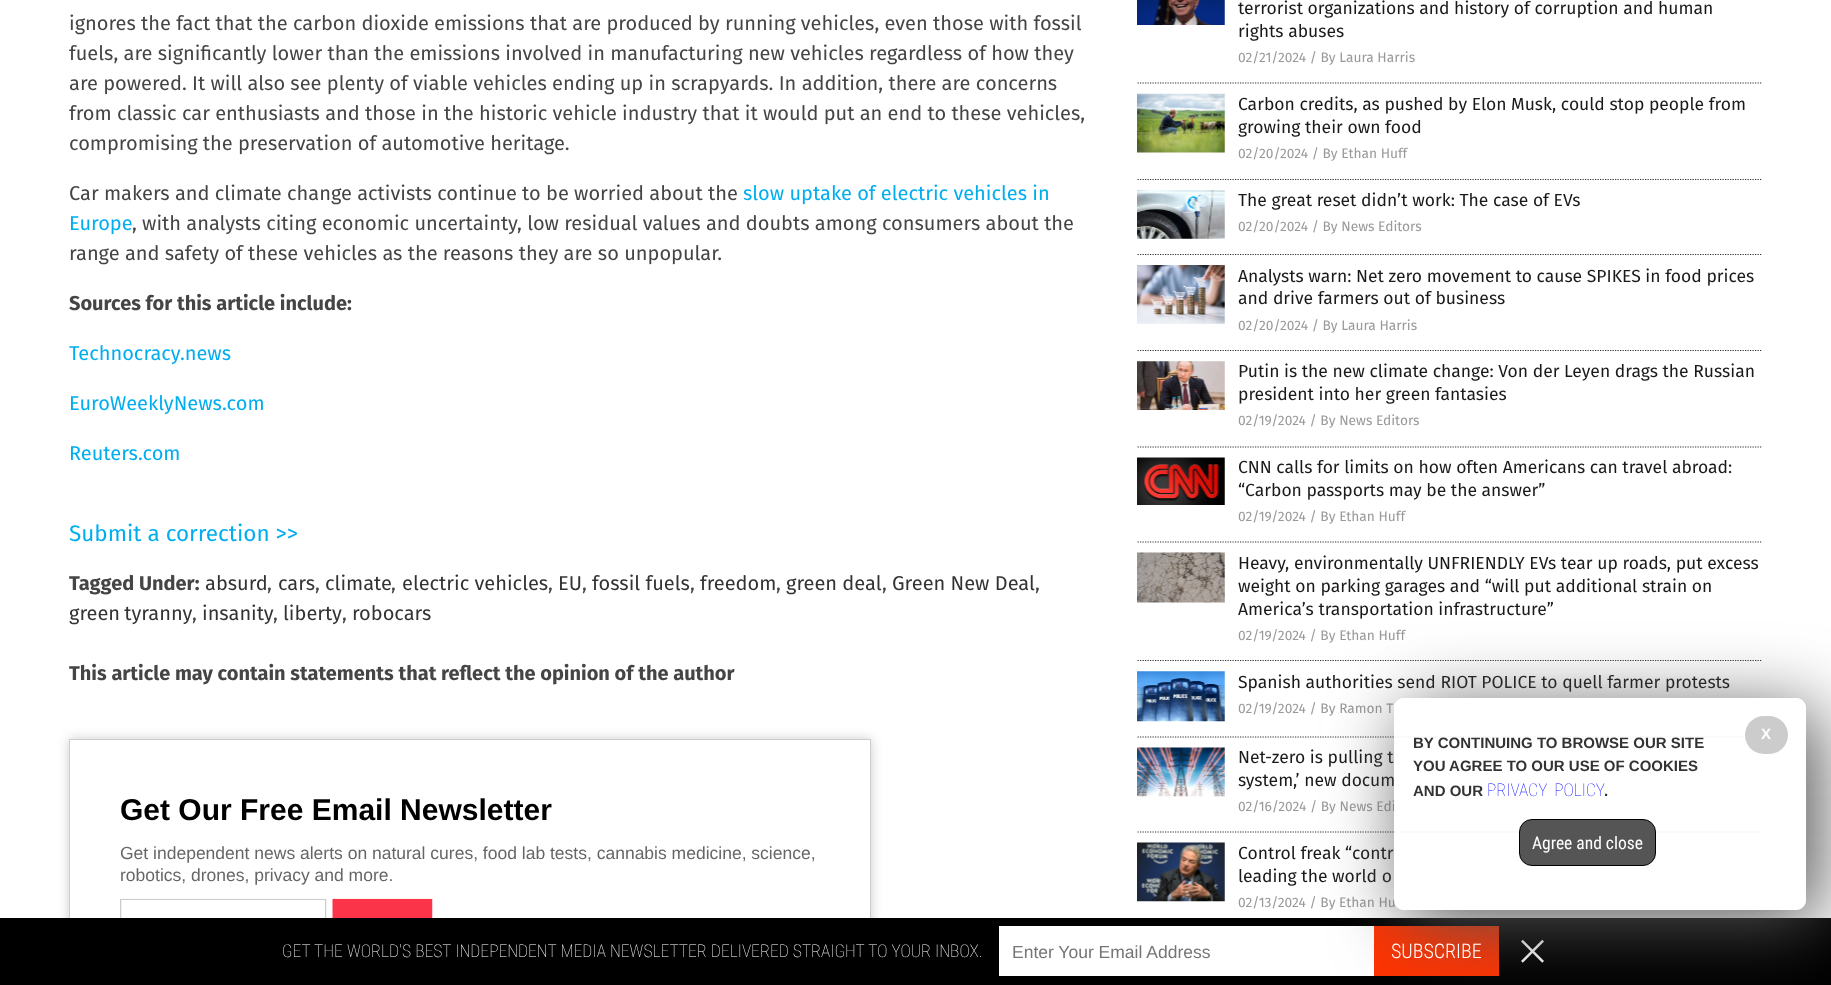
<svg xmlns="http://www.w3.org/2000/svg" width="1831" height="985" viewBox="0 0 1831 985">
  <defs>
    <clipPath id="clip1"><path d="M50 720H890V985H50ZM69 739H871V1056H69Z" clip-rule="evenodd"/></clipPath>
    <clipPath id="clip2"><path d="M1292 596H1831V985H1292ZM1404 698H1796C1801.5 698 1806 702.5 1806 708V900C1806 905.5 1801.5 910 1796 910H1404C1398.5 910 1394 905.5 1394 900V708C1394 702.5 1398.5 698 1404 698Z" clip-rule="evenodd"/></clipPath>
  </defs>
  <rect width="100%" height="100%" fill="rgb(255,255,255)"/>
  <g font-family="Fira Sans" font-size="20" fill="rgb(69,69,69)">
    <text>
      <tspan x="69" y="30">ignores the fact that the carbon dioxide emissions that are produced by running vehicles, even those with fossil</tspan>
      <tspan x="69" y="60">fuels, are significantly lower than the emissions involved in manufacturing new vehicles regardless of how they</tspan>
      <tspan x="69" y="90">are powered. It will also see plenty of viable vehicles ending up in scrapyards. In addition, there are concerns</tspan>
      <tspan x="69" y="120">from classic car enthusiasts and those in the historic vehicle industry that it would put an end to these vehicles,</tspan>
      <tspan x="69" y="150">compromising the preservation of automotive heritage.</tspan>
    </text>
    <text x="69" y="200">Car makers and climate change activists continue to be worried about the</text>
  </g>
  <g font-family="Fira Sans" font-size="20" fill="rgb(0,174,239)">
    <text x="743" y="200">slow uptake of electric vehicles in</text>
    <text x="69" y="230">Europe</text>
  </g>
  <g font-family="Fira Sans" font-size="20" fill="rgb(69,69,69)">
    <text x="132" y="230">, with analysts citing economic uncertainty, low residual values and doubts among consumers about the</text>
    <text x="69" y="260">range and safety of these vehicles as the reasons they are so unpopular.</text>
  </g>
  <text x="69" y="310" font-family="Fira Sans" font-size="20" font-weight="bold" fill="rgb(69,69,69)">Sources for this article include:</text>
  <g font-family="Fira Sans" font-size="20" fill="rgb(0,174,239)">
    <text x="69" y="360">Technocracy.news</text>
    <text x="69" y="410">EuroWeeklyNews.com</text>
    <text x="69" y="460">Reuters.com</text>
  </g>
  <text x="69" y="541" font-family="Fira Sans" font-size="22.5" fill="rgb(0,174,239)">Submit a correction &gt;&gt;</text>
  <text x="69" y="590" font-family="Fira Sans" font-size="20" font-weight="bold" fill="rgb(69,69,69)">Tagged Under:</text>
  <text x="205" y="590" font-family="Fira Sans" font-size="20" fill="rgb(51,51,51)">absurd</text>
  <text x="267" y="590" font-family="Fira Sans" font-size="20" fill="rgb(69,69,69)">,</text>
  <text x="278" y="590" font-family="Fira Sans" font-size="20" fill="rgb(51,51,51)">cars</text>
  <text x="315" y="590" font-family="Fira Sans" font-size="20" fill="rgb(69,69,69)">,</text>
  <text x="325" y="590" font-family="Fira Sans" font-size="20" fill="rgb(51,51,51)">climate</text>
  <text x="391" y="590" font-family="Fira Sans" font-size="20" fill="rgb(69,69,69)">,</text>
  <text x="402" y="590" font-family="Fira Sans" font-size="20" fill="rgb(51,51,51)">electric vehicles</text>
  <text x="548" y="590" font-family="Fira Sans" font-size="20" fill="rgb(69,69,69)">,</text>
  <text x="558" y="590" font-family="Fira Sans" font-size="20" fill="rgb(51,51,51)">EU</text>
  <text x="582" y="590" font-family="Fira Sans" font-size="20" fill="rgb(69,69,69)">,</text>
  <text x="592" y="590" font-family="Fira Sans" font-size="20" fill="rgb(51,51,51)">fossil fuels</text>
  <text x="690" y="590" font-family="Fira Sans" font-size="20" fill="rgb(69,69,69)">,</text>
  <text x="700" y="590" font-family="Fira Sans" font-size="20" fill="rgb(51,51,51)">freedom</text>
  <text x="776" y="590" font-family="Fira Sans" font-size="20" fill="rgb(69,69,69)">,</text>
  <text x="786" y="590" font-family="Fira Sans" font-size="20" fill="rgb(51,51,51)">green deal</text>
  <text x="882" y="590" font-family="Fira Sans" font-size="20" fill="rgb(69,69,69)">,</text>
  <text x="892" y="590" font-family="Fira Sans" font-size="20" fill="rgb(51,51,51)">Green New Deal</text>
  <text x="1035" y="590" font-family="Fira Sans" font-size="20" fill="rgb(69,69,69)">,</text>
  <text x="69" y="620" word-spacing="-1" font-family="Fira Sans" font-size="20" fill="rgb(51,51,51)">green tyranny</text>
  <text x="192" y="620" font-family="Fira Sans" font-size="20" fill="rgb(69,69,69)">,</text>
  <text x="202" y="620" font-family="Fira Sans" font-size="20" fill="rgb(51,51,51)">insanity</text>
  <text x="273" y="620" font-family="Fira Sans" font-size="20" fill="rgb(69,69,69)">,</text>
  <text x="283" y="620" font-family="Fira Sans" font-size="20" fill="rgb(51,51,51)">liberty</text>
  <text x="342" y="620" font-family="Fira Sans" font-size="20" fill="rgb(69,69,69)">,</text>
  <text x="352" y="620" font-family="Fira Sans" font-size="20" fill="rgb(51,51,51)">robocars</text>
  <text x="69" y="680" font-family="Fira Sans" font-size="20" font-weight="bold" fill="rgb(69,69,69)">This article may contain statements that reflect the opinion of the author</text>
  <g clip-path="url(#clip1)">
    <rect x="69" y="739" width="802" height="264" fill="rgb(204,204,204)" filter="blur(6px)"/>
  </g>
  <rect x="69.5" y="739.5" width="801" height="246" fill="none" stroke="rgb(204,204,204)"/>
  <text x="120" y="820" font-family="Liberation Sans" font-size="30" font-weight="bold" fill="rgb(0,0,0)">Get Our Free Email Newsletter</text>
  <g font-family="Liberation Sans" font-size="17.5" fill="rgb(102,102,102)">
    <text>
      <tspan x="120" y="859">Get independent news alerts on natural cures, food lab tests, cannabis medicine, science,</tspan>
      <tspan x="120" y="881">robotics, drones, privacy and more.</tspan>
    </text>
  </g>
  <image x="120" y="898" width="313" height="20" href="pic1.png"/>
  <path d="M1137.5 83H1762.5" fill="none" stroke="rgb(52,52,52)" stroke-width="1.2" stroke-dasharray="1.25 1.25"/>
  <image x="1137" y="0" width="88" height="25" href="pic2.png"/>
  <g font-family="Fira Sans" font-size="17.5" fill="rgb(26,26,26)">
    <text>
      <tspan x="1238" y="14">terrorist organizations and history of corruption and human</tspan>
      <tspan x="1238" y="37">rights abuses</tspan>
    </text>
  </g>
  <text x="1238" y="62" font-family="Fira Sans" font-size="13.75" fill="rgb(153,153,153)">02/21/2024 / By Laura Harris</text>
  <path d="M1137.5 179.5H1762.5" fill="none" stroke="rgb(52,52,52)" stroke-width="1.2" stroke-dasharray="1.25 1.25"/>
  <image x="1137" y="93" width="88" height="60" href="pic3.png"/>
  <g font-family="Fira Sans" font-size="17.5" fill="rgb(26,26,26)">
    <text>
      <tspan x="1238" y="110">Carbon credits, as pushed by Elon Musk, could stop people from</tspan>
      <tspan x="1238" y="133">growing their own food</tspan>
    </text>
  </g>
  <text x="1238" y="158" font-family="Fira Sans" font-size="13.75" fill="rgb(153,153,153)">02/20/2024 / By Ethan Huff</text>
  <path d="M1137.5 254.5H1762.5" fill="none" stroke="rgb(52,52,52)" stroke-width="1.2" stroke-dasharray="1.25 1.25"/>
  <image x="1137" y="190" width="88" height="49" href="pic4.png"/>
  <text x="1238" y="206" font-family="Fira Sans" font-size="17.5" fill="rgb(26,26,26)">The great reset didn’t work: The case of EVs</text>
  <text x="1238" y="231" font-family="Fira Sans" font-size="13.75" fill="rgb(153,153,153)">02/20/2024 / By News Editors</text>
  <path d="M1137.5 350.5H1762.5" fill="none" stroke="rgb(52,52,52)" stroke-width="1.2" stroke-dasharray="1.25 1.25"/>
  <image x="1137" y="265" width="88" height="59" href="pic5.png"/>
  <g font-family="Fira Sans" font-size="17.5" fill="rgb(26,26,26)">
    <text>
      <tspan x="1238" y="282">Analysts warn: Net zero movement to cause SPIKES in food prices</tspan>
      <tspan x="1238" y="304">and drive farmers out of business</tspan>
    </text>
  </g>
  <text x="1238" y="330" font-family="Fira Sans" font-size="13.75" fill="rgb(153,153,153)">02/20/2024 / By Laura Harris</text>
  <path d="M1137.5 447H1762.5" fill="none" stroke="rgb(52,52,52)" stroke-width="1.2" stroke-dasharray="1.25 1.25"/>
  <image x="1137" y="361" width="88" height="49" href="pic6.png"/>
  <g font-family="Fira Sans" font-size="17.5" fill="rgb(26,26,26)">
    <text>
      <tspan x="1238" y="377">Putin is the new climate change: Von der Leyen drags the Russian</tspan>
      <tspan x="1238" y="400">president into her green fantasies</tspan>
    </text>
  </g>
  <text x="1238" y="425" font-family="Fira Sans" font-size="13.75" fill="rgb(153,153,153)">02/19/2024 / By News Editors</text>
  <path d="M1137.5 542H1762.5" fill="none" stroke="rgb(52,52,52)" stroke-width="1.2" stroke-dasharray="1.25 1.25"/>
  <image x="1137" y="457" width="88" height="48" href="pic7.png"/>
  <g font-family="Fira Sans" font-size="17.5" fill="rgb(26,26,26)">
    <text>
      <tspan x="1238" y="473">CNN calls for limits on how often Americans can travel abroad:</tspan>
      <tspan x="1238" y="496">“Carbon passports may be the answer”</tspan>
    </text>
  </g>
  <text x="1238" y="521" font-family="Fira Sans" font-size="13.75" fill="rgb(153,153,153)">02/19/2024 / By Ethan Huff</text>
  <path d="M1137.5 660.5H1762.5" fill="none" stroke="rgb(52,52,52)" stroke-width="1.2" stroke-dasharray="1.25 1.25"/>
  <image x="1137" y="552" width="88" height="51" href="pic8.png"/>
  <g font-family="Fira Sans" font-size="17.5" fill="rgb(26,26,26)">
    <text>
      <tspan x="1238" y="569">Heavy, environmentally UNFRIENDLY EVs tear up roads, put excess</tspan>
      <tspan x="1238" y="592">weight on parking garages and “will put additional strain on</tspan>
      <tspan x="1238" y="615">America’s transportation infrastructure”</tspan>
    </text>
  </g>
  <text x="1238" y="640" font-family="Fira Sans" font-size="13.75" fill="rgb(153,153,153)">02/19/2024 / By Ethan Huff</text>
  <path d="M1137.5 737H1762.5" fill="none" stroke="rgb(52,52,52)" stroke-width="1.2" stroke-dasharray="1.25 1.25"/>
  <image x="1137" y="671" width="88" height="51" href="pic9.png"/>
  <text x="1238" y="688" font-family="Fira Sans" font-size="17.5" fill="rgb(26,26,26)">Spanish authorities send RIOT POLICE to quell farmer protests</text>
  <text x="1238" y="713" font-family="Fira Sans" font-size="13.75" fill="rgb(153,153,153)">02/19/2024 / By Ramon T</text>
  <path d="M1137.5 832H1762.5" fill="none" stroke="rgb(52,52,52)" stroke-width="1.2" stroke-dasharray="1.25 1.25"/>
  <image x="1137" y="747" width="88" height="50" href="pic10.png"/>
  <g font-family="Fira Sans" font-size="17.5" fill="rgb(26,26,26)">
    <text>
      <tspan x="1238" y="763">Net-zero is pulling t</tspan>
      <tspan x="1238" y="786">system,’ new docum</tspan>
    </text>
  </g>
  <text x="1238" y="811" font-family="Fira Sans" font-size="13.75" fill="rgb(153,153,153)">02/16/2024 / By News Edi</text>
  <image x="1137" y="842" width="88" height="60" href="pic11.png"/>
  <g font-family="Fira Sans" font-size="17.5" fill="rgb(26,26,26)">
    <text>
      <tspan x="1238" y="859">Control freak “contr</tspan>
      <tspan x="1238" y="882">leading the world o</tspan>
    </text>
  </g>
  <text x="1238" y="907" font-family="Fira Sans" font-size="13.75" fill="rgb(153,153,153)">02/13/2024 / By Ethan Hu</text>
  <rect x="0" y="918" width="1831" height="67" fill="rgb(0,0,0)"/>
  <rect x="999" y="926" width="375" height="50" fill="rgb(255,255,255)"/>
  <rect x="1374" y="926" width="125" height="50" fill="rgb(255,51,0)"/>
  <image x="1521" y="939" width="23" height="24" href="pic12.png"/>
  <g clip-path="url(#clip2)">
    <rect x="1406" y="710" width="413" height="213" rx="10" fill="rgb(85,85,85)" filter="blur(37.5px)"/>
  </g>
  <rect x="1394" y="698" width="412" height="212" rx="10" fill="rgba(255,255,255,0.9)"/>
  <rect x="1745" y="716" width="43" height="38" rx="19" fill="rgb(204,204,204)"/>
  <text x="1761" y="739" font-family="Liberation Sans" font-size="15" font-weight="bold" fill="rgb(255,255,255)">X</text>
  <g font-family="Liberation Sans" font-size="15" font-weight="bold" fill="rgb(51,51,51)">
    <text>
      <tspan x="1413" y="748">BY CONTINUING TO BROWSE OUR SITE</tspan>
      <tspan x="1413" y="771">YOU AGREE TO OUR USE OF COOKIES</tspan>
      <tspan x="1413" y="796">AND OUR</tspan>
    </text>
  </g>
  <text x="1487" y="796" word-spacing="3" font-family="Roboto Condensed" font-size="17.5" font-weight="100" fill="rgb(0,0,255)">PRIVACY POLICY</text>
  <text x="1604" y="796" font-family="Liberation Sans" font-size="15" font-weight="bold" fill="rgb(51,51,51)">.</text>
  <rect x="1519.5" y="819.5" width="136" height="46" rx="12.5" fill="rgb(85,85,85)" stroke="rgb(0,0,0)"/>
  <text x="1532" y="849" font-family="Roboto Condensed" font-size="17.5" fill="rgb(255,255,255)">Agree and close</text>
  <text x="282" y="957" word-spacing="0.25" font-family="Roboto Condensed" font-size="17.5" font-weight="100" fill="rgb(255,255,255)">GET THE WORLD'S BEST INDEPENDENT MEDIA NEWSLETTER DELIVERED STRAIGHT TO YOUR INBOX.</text>
  <text x="1012" y="958" font-family="Liberation Sans" font-size="17.5" fill="rgb(117,117,117)">Enter Your Email Address</text>
  <text x="1391" y="958" font-family="Roboto Condensed" font-size="20" font-weight="300" fill="rgb(255,255,255)">SUBSCRIBE</text>
</svg>
